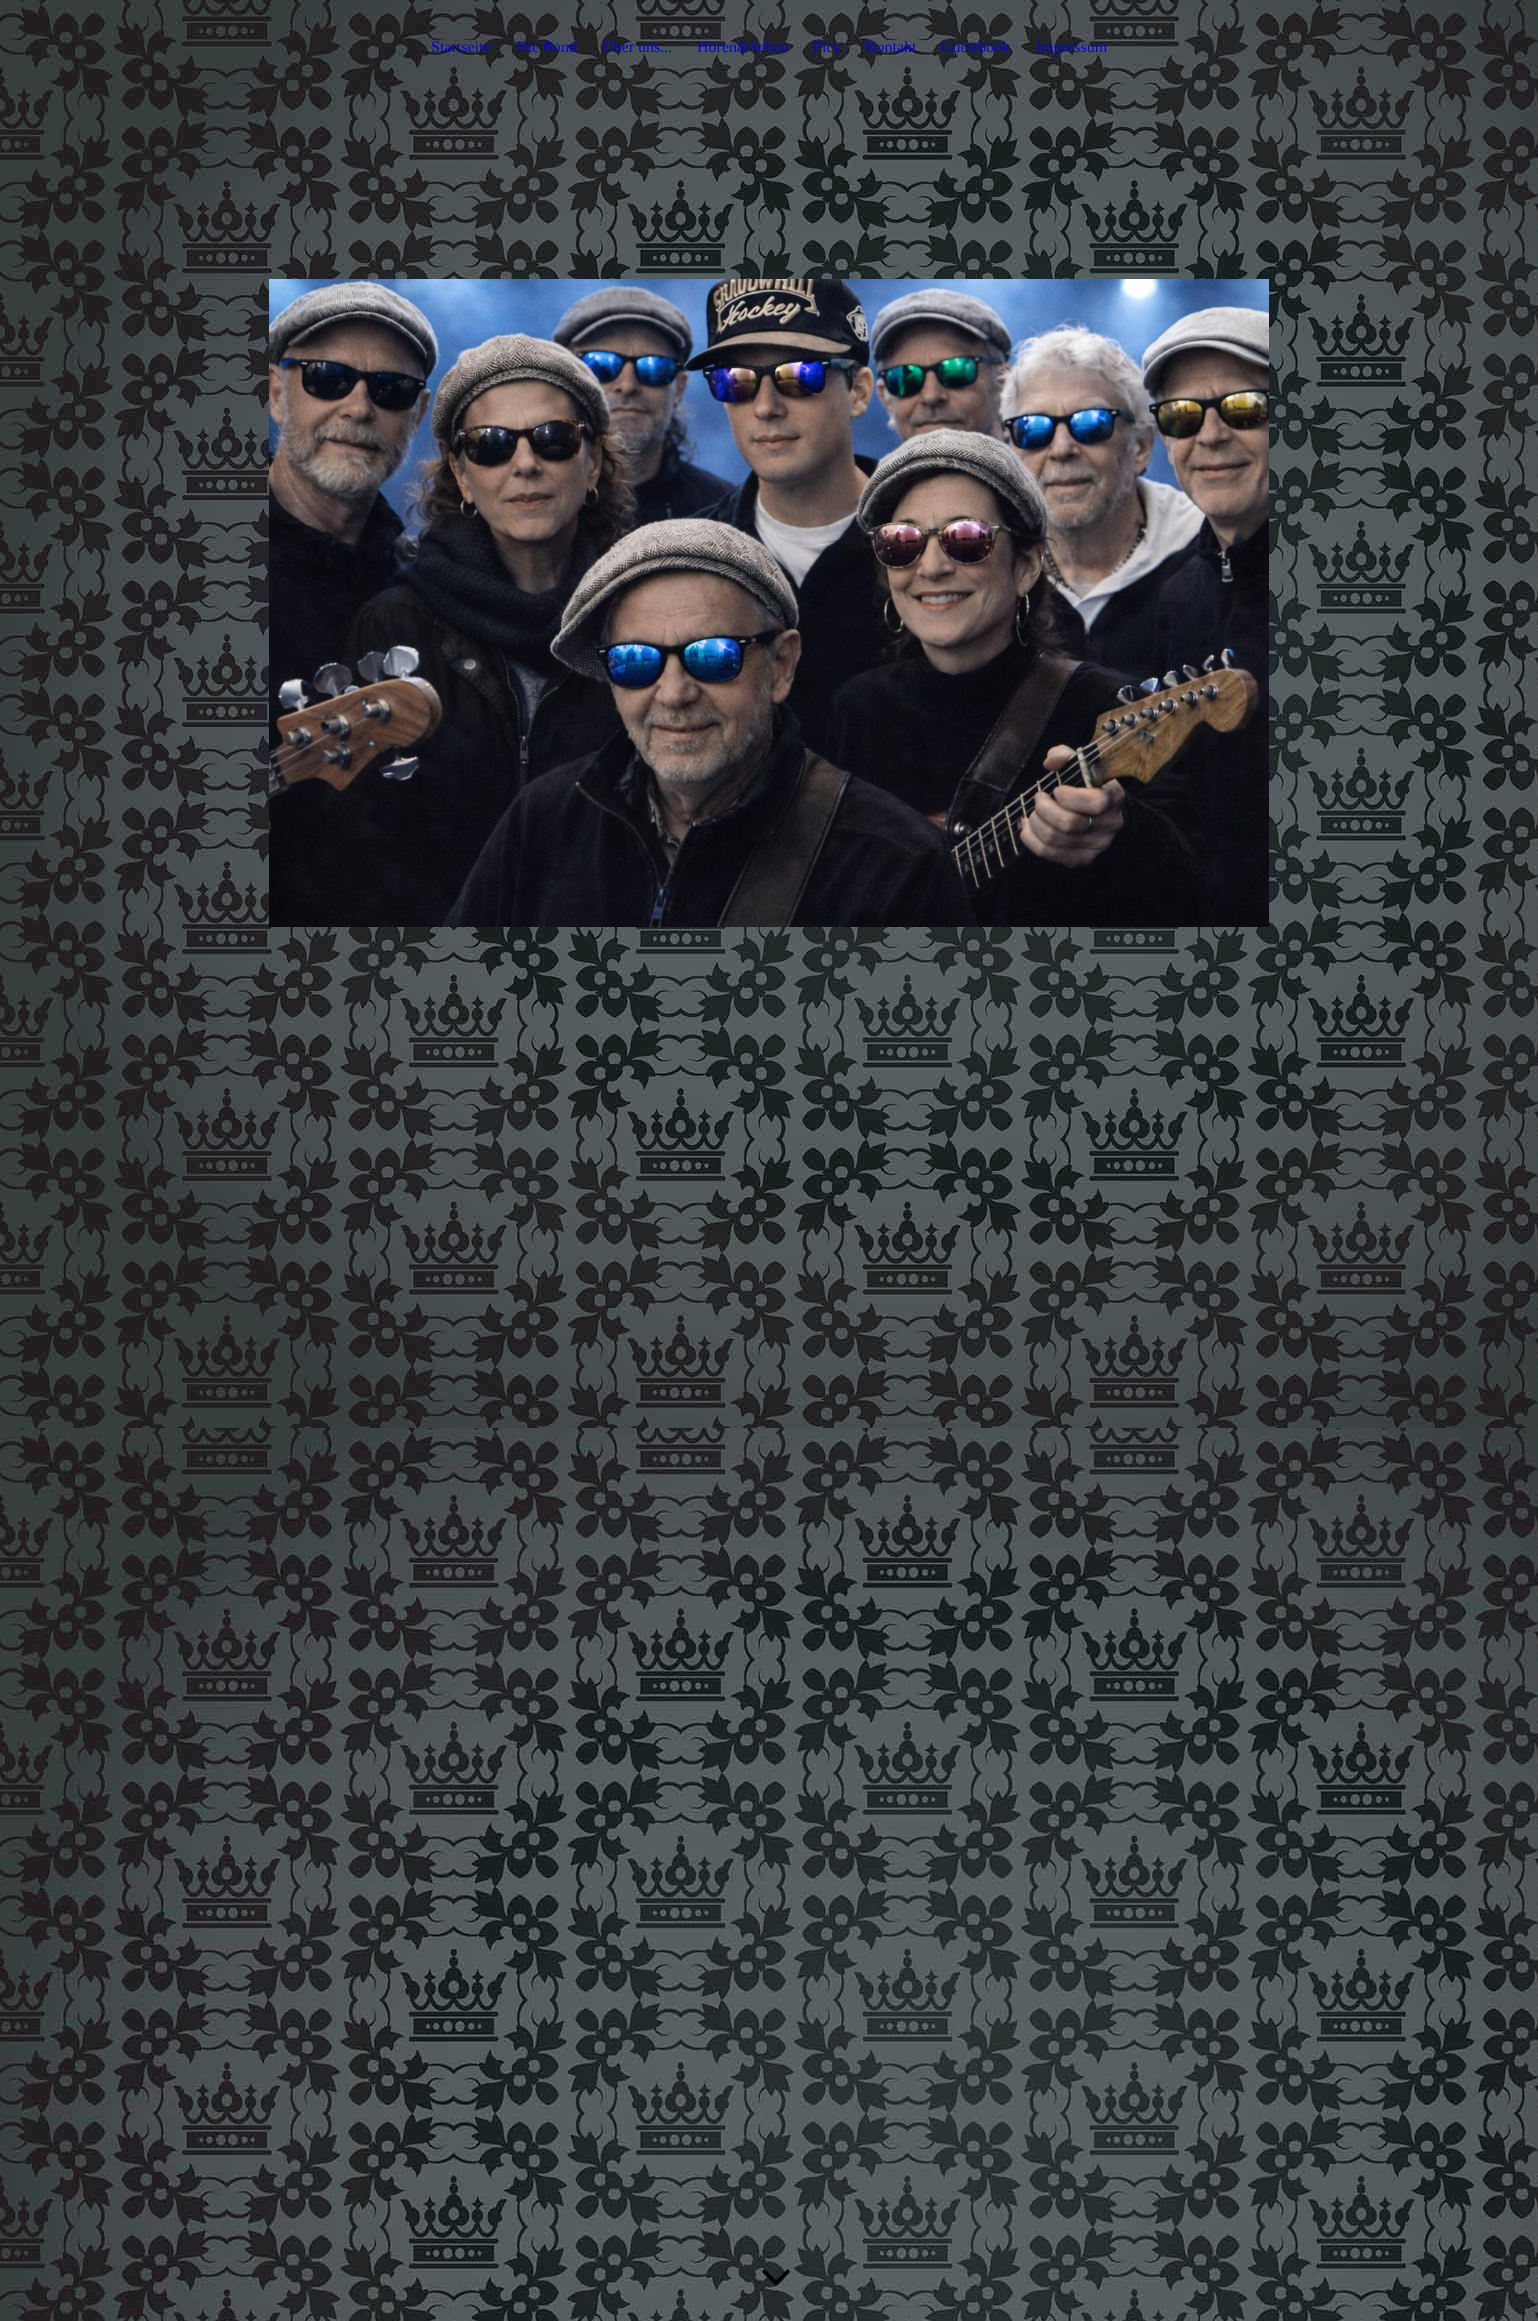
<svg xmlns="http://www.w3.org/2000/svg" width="1538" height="2321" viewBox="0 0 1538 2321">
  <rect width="100%" height="100%" fill="rgb(255,255,255)"/>
  <image x="0" y="0" width="1538" height="2321" href="pic1.png"/>
  <g font-family="Liberation Serif" font-size="16" fill="rgb(0,0,238)">
    <text x="431" y="52">Startseite</text>
    <text x="516" y="52">Die Band</text>
    <text x="602" y="52">Über uns...</text>
    <text x="697" y="52">Hören&amp;Sehen</text>
    <text x="813" y="52">Pics</text>
    <text x="865" y="52">Kontakt</text>
    <text x="941" y="52">Guestbook</text>
    <text x="1036" y="52">Impressum</text>
  </g>
  <image x="269" y="279" width="1000" height="648" href="pic2.png"/>
  <image x="762" y="2269" width="28" height="17" href="pic3.png"/>
</svg>
